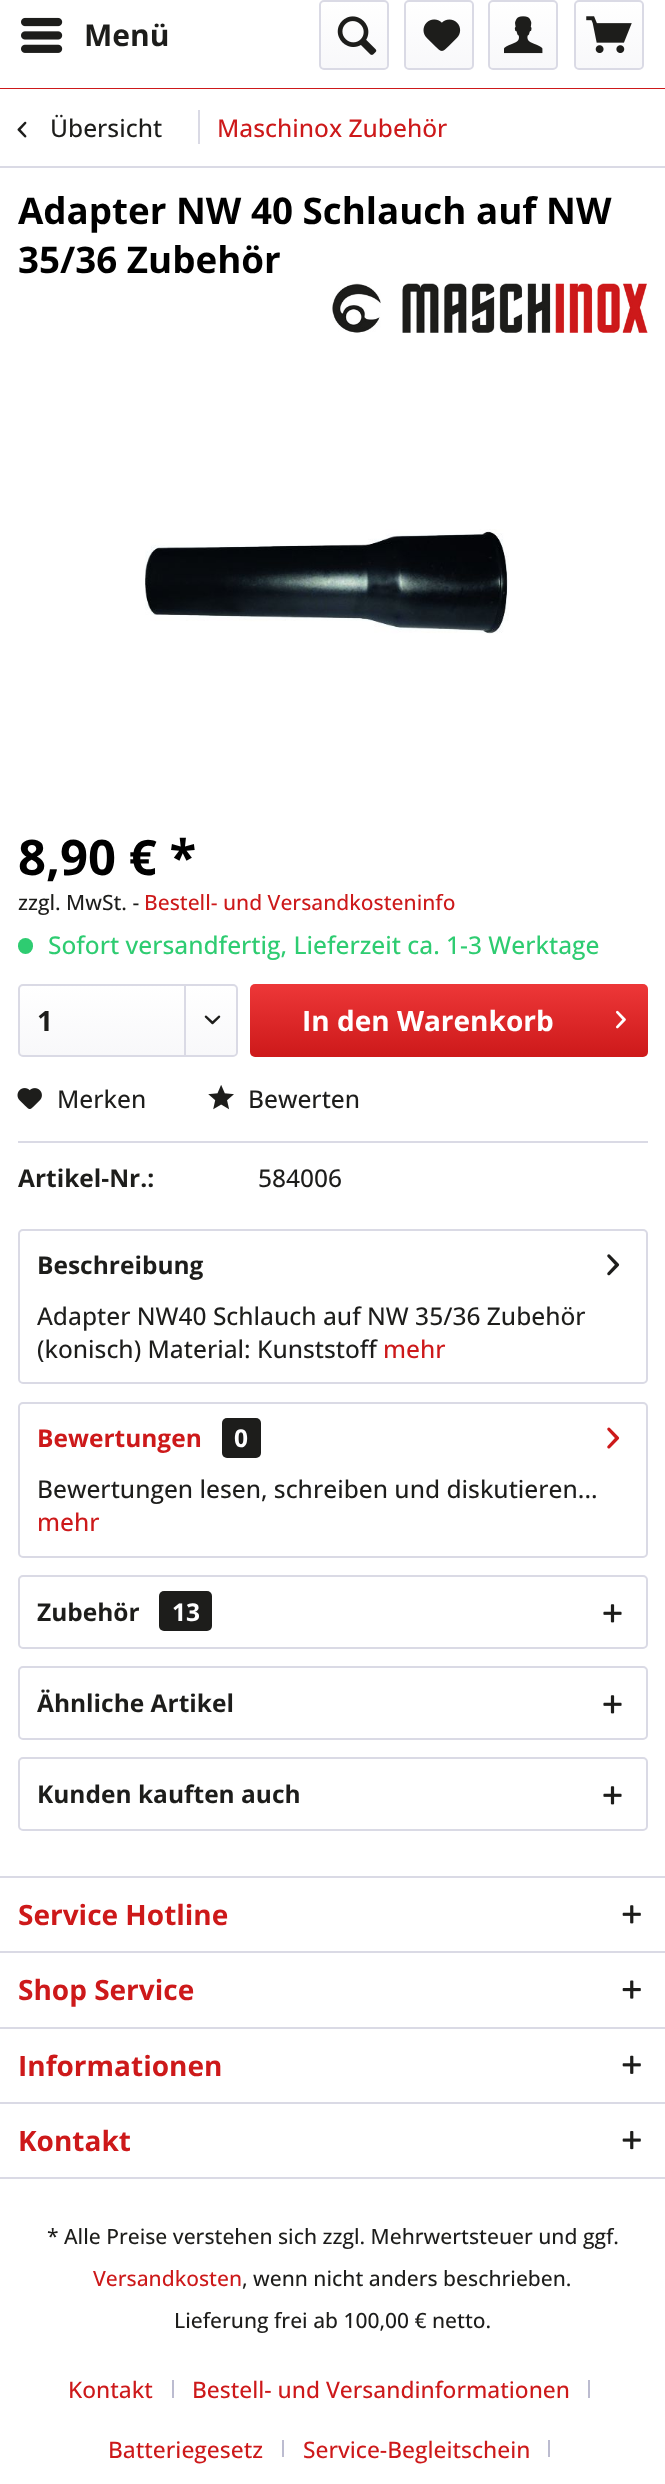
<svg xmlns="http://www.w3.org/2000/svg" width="665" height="2484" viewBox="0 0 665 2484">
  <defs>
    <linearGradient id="g1" gradientUnits="userSpaceOnUse" x1="354" y1="1.7" x2="354" y2="68"><stop offset="0" stop-color="rgb(255,255,255)"/><stop offset="1" stop-color="rgb(248,248,250)"/></linearGradient>
    <linearGradient id="g2" gradientUnits="userSpaceOnUse" x1="439" y1="1.7" x2="439" y2="68"><stop offset="0" stop-color="rgb(255,255,255)"/><stop offset="1" stop-color="rgb(248,248,250)"/></linearGradient>
    <linearGradient id="g3" gradientUnits="userSpaceOnUse" x1="523" y1="1.7" x2="523" y2="68"><stop offset="0" stop-color="rgb(255,255,255)"/><stop offset="1" stop-color="rgb(248,248,250)"/></linearGradient>
    <linearGradient id="g4" gradientUnits="userSpaceOnUse" x1="609" y1="1.7" x2="609" y2="68"><stop offset="0" stop-color="rgb(255,255,255)"/><stop offset="1" stop-color="rgb(248,248,250)"/></linearGradient>
    <linearGradient id="g5" gradientUnits="userSpaceOnUse" x1="128" y1="985" x2="128" y2="1055"><stop offset="0" stop-color="rgb(255,255,255)"/><stop offset="1" stop-color="rgb(248,248,250)"/></linearGradient>
    <linearGradient id="g6" gradientUnits="userSpaceOnUse" x1="449" y1="984" x2="449" y2="1057"><stop offset="0" stop-color="rgb(237,55,56)"/><stop offset="1" stop-color="rgb(205,25,26)"/></linearGradient>
  </defs>
  <rect width="100%" height="100%" fill="rgb(255,255,255)"/>
  <rect x="0" y="88" width="665" height="1" fill="rgb(205,25,26)"/>
  <image x="21" y="17" width="42" height="36" href="pic1.png"/>
  <text x="84" y="46" font-family="Open Sans" font-size="30" font-weight="bold" fill="rgb(29,29,27)">Menü</text>
  <rect x="320" y="2" width="67" height="66" rx="4" fill="url(#g1)"/>
  <rect x="320" y="1" width="68" height="68" rx="4" fill="none" stroke="rgb(218,218,229)" stroke-width="2"/>
  <image x="337" y="16" width="40" height="39" href="pic2.png"/>
  <rect x="406" y="2" width="67" height="66" rx="4" fill="url(#g2)"/>
  <rect x="405" y="1" width="68" height="68" rx="4" fill="none" stroke="rgb(218,218,229)" stroke-width="2"/>
  <image x="423" y="19" width="38" height="32" href="pic3.png"/>
  <rect x="490" y="2" width="67" height="66" rx="4" fill="url(#g3)"/>
  <rect x="489" y="1" width="68" height="68" rx="4" fill="none" stroke="rgb(218,218,229)" stroke-width="2"/>
  <image x="504" y="16" width="39" height="38" href="pic4.png"/>
  <rect x="576" y="2" width="66" height="66" rx="4" fill="url(#g4)"/>
  <rect x="575" y="1" width="68" height="68" rx="4" fill="none" stroke="rgb(218,218,229)" stroke-width="2"/>
  <image x="586" y="16" width="46" height="37" href="pic5.png"/>
  <rect x="0" y="166" width="665" height="2" fill="rgb(218,218,229)"/>
  <image x="17" y="121" width="10" height="17" href="pic6.png"/>
  <text x="50" y="137" font-family="Open Sans" font-size="24.5" font-weight="500" fill="rgb(29,29,27)">Übersicht</text>
  <rect x="198" y="110" width="2" height="34" fill="rgb(218,218,229)"/>
  <text x="217" y="137" font-family="Open Sans" font-size="24.5" font-weight="500" fill="rgb(205,25,26)">Maschinox Zubehör</text>
  <g font-family="Open Sans" font-size="36.75" font-weight="bold" fill="rgb(0,0,0)">
    <text>
      <tspan x="18" y="224">Adapter NW 40 Schlauch auf NW</tspan>
      <tspan x="18" y="273">35/36 Zubehör</tspan>
    </text>
  </g>
  <image x="332" y="283" width="316" height="50" href="pic7.png"/>
  <image x="145" y="529" width="364" height="105" href="pic8.png"/>
  <text x="18" y="875" font-family="Open Sans" font-size="49" font-weight="bold" fill="rgb(0,0,0)">8,90 € *</text>
  <text x="18" y="910" font-family="Open Sans" font-size="21" font-weight="500" fill="rgb(29,29,27)">zzgl. MwSt. -</text>
  <text x="144" y="910" font-family="Open Sans" font-size="21" font-weight="500" fill="rgb(205,25,26)">Bestell- und Versandkosteninfo</text>
  <rect x="18" y="938" width="15" height="16" rx="7.5" fill="rgb(46,204,113)"/>
  <text x="48" y="954" font-family="Open Sans" font-size="24.5" font-weight="500" fill="rgb(46,204,113)">Sofort versandfertig, Lieferzeit ca. 1-3 Werktage</text>
  <rect x="19" y="985" width="217" height="70" rx="4" fill="url(#g5)"/>
  <rect x="19" y="985" width="218" height="71" rx="4" fill="none" stroke="rgb(218,218,229)" stroke-width="2"/>
  <text x="37" y="1031" font-family="Open Sans" font-size="28" font-weight="bold" fill="rgb(29,29,27)">1</text>
  <rect x="184" y="985" width="2" height="70" fill="rgb(218,218,229)"/>
  <image x="204" y="1015" width="17" height="10" href="pic9.png"/>
  <rect x="250" y="984" width="398" height="73" rx="5" fill="url(#g6)"/>
  <text x="302" y="1031" font-family="Open Sans" font-size="28" font-weight="bold" fill="rgb(255,255,255)">In den Warenkorb</text>
  <image x="616" y="1010" width="10" height="19" href="pic10.png"/>
  <rect x="18" y="1141" width="630" height="2" fill="rgb(218,218,229)"/>
  <image x="17" y="1088" width="25" height="21" href="pic11.png"/>
  <text x="57" y="1108" font-family="Open Sans" font-size="24.5" font-weight="500" fill="rgb(29,29,27)">Merken</text>
  <image x="208" y="1085" width="26" height="25" href="pic12.png"/>
  <text x="248" y="1108" font-family="Open Sans" font-size="24.5" font-weight="500" fill="rgb(29,29,27)">Bewerten</text>
  <text x="18" y="1187" font-family="Open Sans" font-size="24.5" font-weight="bold" fill="rgb(29,29,27)">Artikel-Nr.:</text>
  <text x="258" y="1187" font-family="Open Sans" font-size="24.5" font-weight="500" fill="rgb(29,29,27)">584006</text>
  <rect x="19" y="1230" width="628" height="153" rx="4" fill="none" stroke="rgb(218,218,229)" stroke-width="2"/>
  <text x="37" y="1274" font-family="Open Sans" font-size="24.5" font-weight="bold" fill="rgb(29,29,27)">Beschreibung</text>
  <image x="607" y="1254" width="13" height="22" href="pic13.png"/>
  <g font-family="Open Sans" font-size="24.5" font-weight="500" fill="rgb(29,29,27)">
    <text>
      <tspan x="37" y="1325">Adapter NW40 Schlauch auf NW 35/36 Zubehör</tspan>
      <tspan x="37" y="1358">(konisch) Material: Kunststoff</tspan>
    </text>
  </g>
  <text x="383" y="1358" font-family="Open Sans" font-size="24.5" font-weight="500" fill="rgb(205,25,26)">mehr</text>
  <rect x="19" y="1403" width="628" height="154" rx="4" fill="none" stroke="rgb(218,218,229)" stroke-width="2"/>
  <text x="37" y="1447" font-family="Open Sans" font-size="24.5" font-weight="bold" fill="rgb(205,25,26)">Bewertungen</text>
  <image x="607" y="1427" width="13" height="22" href="pic14.png"/>
  <rect x="222" y="1418" width="39" height="40" rx="5" fill="rgb(29,29,27)"/>
  <text x="234" y="1447" font-family="Open Sans" font-size="24.5" font-weight="bold" fill="rgb(255,255,255)">0</text>
  <text x="37" y="1498" font-family="Open Sans" font-size="24.5" font-weight="500" fill="rgb(29,29,27)">Bewertungen lesen, schreiben und diskutieren...</text>
  <text x="37" y="1531" font-family="Open Sans" font-size="24.5" font-weight="500" fill="rgb(205,25,26)">mehr</text>
  <rect x="19" y="1576" width="628" height="72" rx="4" fill="none" stroke="rgb(218,218,229)" stroke-width="2"/>
  <text x="37" y="1621" font-family="Open Sans" font-size="24.5" font-weight="bold" fill="rgb(29,29,27)">Zubehör</text>
  <rect x="159" y="1591" width="53" height="40" rx="5" fill="rgb(29,29,27)"/>
  <text x="172" y="1621" font-family="Open Sans" font-size="24.5" font-weight="bold" fill="rgb(255,255,255)">13</text>
  <image x="603" y="1604" width="19" height="19" href="pic15.png"/>
  <rect x="19" y="1667" width="628" height="72" rx="4" fill="none" stroke="rgb(218,218,229)" stroke-width="2"/>
  <text x="37" y="1712" font-family="Open Sans" font-size="24.5" font-weight="bold" fill="rgb(29,29,27)">Ähnliche Artikel</text>
  <image x="603" y="1695" width="19" height="19" href="pic15.png"/>
  <rect x="19" y="1758" width="628" height="72" rx="4" fill="none" stroke="rgb(218,218,229)" stroke-width="2"/>
  <text x="37" y="1803" font-family="Open Sans" font-size="24.5" font-weight="bold" fill="rgb(29,29,27)">Kunden kauften auch</text>
  <image x="603" y="1786" width="19" height="19" href="pic15.png"/>
  <rect x="0" y="1876" width="665" height="2" fill="rgb(218,218,229)"/>
  <text x="18" y="1925" font-family="Open Sans" font-size="28" font-weight="bold" fill="rgb(205,25,26)">Service Hotline</text>
  <image x="622" y="1905" width="19" height="19" href="pic16.png"/>
  <rect x="0" y="1951" width="665" height="2" fill="rgb(218,218,229)"/>
  <text x="18" y="2000" font-family="Open Sans" font-size="28" font-weight="bold" fill="rgb(205,25,26)">Shop Service</text>
  <image x="622" y="1980" width="19" height="19" href="pic17.png"/>
  <rect x="0" y="2027" width="665" height="2" fill="rgb(218,218,229)"/>
  <text x="18" y="2076" font-family="Open Sans" font-size="28" font-weight="bold" fill="rgb(205,25,26)">Informationen</text>
  <image x="622" y="2055" width="19" height="19" href="pic18.png"/>
  <rect x="0" y="2102" width="665" height="2" fill="rgb(218,218,229)"/>
  <rect x="0" y="2177" width="665" height="2" fill="rgb(218,218,229)"/>
  <text x="18" y="2151" font-family="Open Sans" font-size="28" font-weight="bold" fill="rgb(205,25,26)">Kontakt</text>
  <image x="622" y="2130" width="19" height="20" href="pic19.png"/>
  <text x="47" y="2244" font-family="Open Sans" font-size="21" font-weight="500" fill="rgb(29,29,27)">* Alle Preise verstehen sich zzgl. Mehrwertsteuer und ggf.</text>
  <text x="93" y="2286" font-family="Open Sans" font-size="21" font-weight="500" fill="rgb(205,25,26)">Versandkosten</text>
  <g font-family="Open Sans" font-size="21" font-weight="500" fill="rgb(29,29,27)">
    <text x="242" y="2286">, wenn nicht anders beschrieben.</text>
    <text x="174" y="2328">Lieferung frei ab 100,00 € netto.</text>
  </g>
  <text x="68" y="2398" font-family="Open Sans" font-size="22.75" font-weight="500" fill="rgb(205,25,26)">Kontakt</text>
  <rect x="172" y="2380" width="2" height="18" fill="rgb(188,188,208)"/>
  <text x="192" y="2398" font-family="Open Sans" font-size="22.75" font-weight="500" fill="rgb(205,25,26)">Bestell- und Versandinformationen</text>
  <rect x="588" y="2380" width="2" height="18" fill="rgb(188,188,208)"/>
  <text x="108" y="2458" font-family="Open Sans" font-size="22.75" font-weight="500" fill="rgb(205,25,26)">Batteriegesetz</text>
  <rect x="282" y="2440" width="2" height="17" fill="rgb(188,188,208)"/>
  <text x="303" y="2458" font-family="Open Sans" font-size="22.75" font-weight="500" fill="rgb(205,25,26)">Service-Begleitschein</text>
  <rect x="548" y="2440" width="2" height="17" fill="rgb(188,188,208)"/>
</svg>
